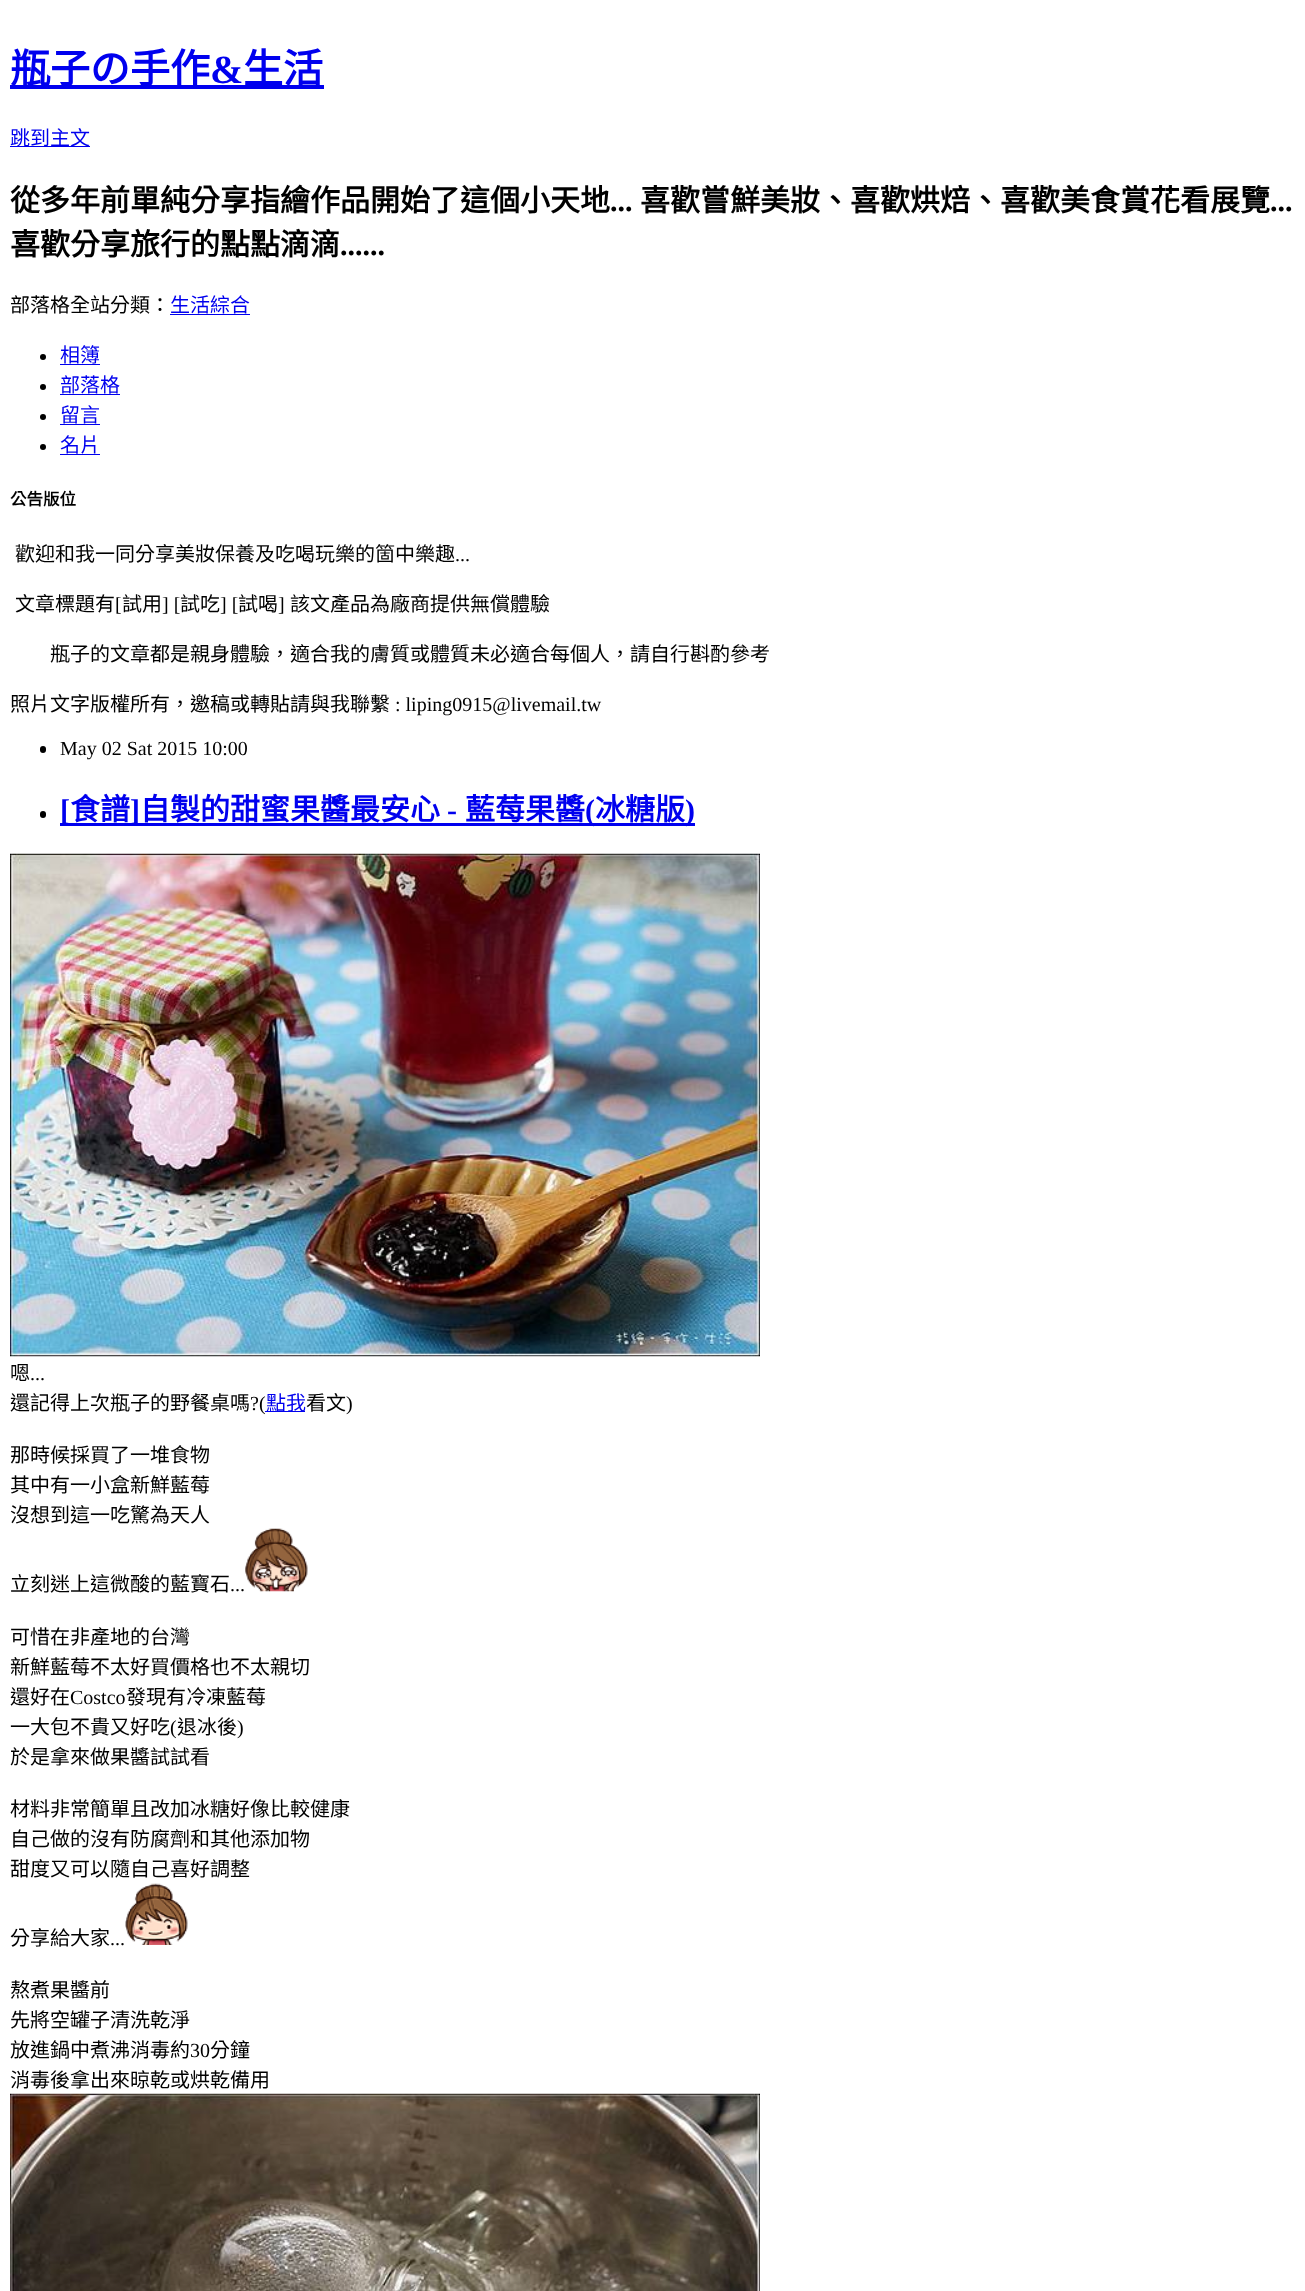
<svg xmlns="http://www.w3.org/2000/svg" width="1305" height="2291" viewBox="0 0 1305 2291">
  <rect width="100%" height="100%" fill="rgb(255,255,255)"/>
  <rect x="10" y="85" width="314" height="4" fill="rgb(0,0,238)"/>
  <text x="10" y="83" font-family="Noto Sans CJK TC" font-size="40" font-weight="bold" fill="rgb(0,0,238)">瓶子の手作</text>
  <text x="210" y="83" font-family="Liberation Serif" font-size="40" font-weight="bold" fill="rgb(0,0,238)">&amp;</text>
  <text x="243" y="83" font-family="Noto Sans CJK TC" font-size="40" font-weight="bold" fill="rgb(0,0,238)">生活</text>
  <rect x="10" y="146" width="80" height="1" fill="rgb(0,0,238)"/>
  <text x="10" y="145" font-family="Noto Sans CJK TC" font-size="20" fill="rgb(0,0,238)">跳到主文</text>
  <text x="10" y="211" font-family="Noto Sans CJK TC" font-size="30" font-weight="bold" fill="rgb(0,0,0)">從多年前單純分享指繪作品開始了這個小天地</text>
  <text x="610" y="211" font-family="Liberation Serif" font-size="30" font-weight="bold" fill="rgb(0,0,0)">...</text>
  <text x="640" y="211" font-family="Noto Sans CJK TC" font-size="30" font-weight="bold" fill="rgb(0,0,0)">喜歡嘗鮮美妝、喜歡烘焙、喜歡美食賞花看展覽</text>
  <text x="1270" y="211" font-family="Liberation Serif" font-size="30" font-weight="bold" fill="rgb(0,0,0)">...</text>
  <text x="10" y="255" font-family="Noto Sans CJK TC" font-size="30" font-weight="bold" fill="rgb(0,0,0)">喜歡分享旅行的點點滴滴</text>
  <text x="340" y="255" font-family="Liberation Serif" font-size="30" font-weight="bold" fill="rgb(0,0,0)">......</text>
  <text x="10" y="312" font-family="Noto Sans CJK TC" font-size="20" fill="rgb(0,0,0)">部落格全站分類：</text>
  <text x="170" y="312" font-family="Noto Sans CJK TC" font-size="20" fill="rgb(0,0,238)">生活綜合</text>
  <rect x="170" y="314" width="80" height="1" fill="rgb(0,0,238)"/>
  <circle cx="43" cy="357" r="3" fill="rgb(0,0,0)"/>
  <text x="60" y="362" font-family="Noto Sans CJK TC" font-size="20" fill="rgb(0,0,238)">相簿</text>
  <rect x="60" y="364" width="40" height="1" fill="rgb(0,0,238)"/>
  <circle cx="43" cy="387" r="3" fill="rgb(0,0,0)"/>
  <text x="60" y="392" font-family="Noto Sans CJK TC" font-size="20" fill="rgb(0,0,238)">部落格</text>
  <rect x="60" y="394" width="60" height="1" fill="rgb(0,0,238)"/>
  <circle cx="43" cy="417" r="3" fill="rgb(0,0,0)"/>
  <text x="60" y="422" font-family="Noto Sans CJK TC" font-size="20" fill="rgb(0,0,238)">留言</text>
  <rect x="60" y="424" width="40" height="1" fill="rgb(0,0,238)"/>
  <circle cx="43" cy="447" r="3" fill="rgb(0,0,0)"/>
  <text x="60" y="452" font-family="Noto Sans CJK TC" font-size="20" fill="rgb(0,0,238)">名片</text>
  <rect x="60" y="454" width="40" height="1" fill="rgb(0,0,238)"/>
  <text x="10" y="505" font-family="Noto Sans CJK TC" font-size="16.5" font-weight="bold" fill="rgb(0,0,0)">公告版位</text>
  <text x="15" y="561" font-family="Noto Sans CJK TC" font-size="20" fill="rgb(0,0,0)">歡迎和我一同分享美妝保養及吃喝玩樂的箇中樂趣</text>
  <text x="455" y="561" font-family="Liberation Serif" font-size="20" fill="rgb(0,0,0)">...</text>
  <text x="15" y="611" font-family="Noto Sans CJK TC" font-size="20" fill="rgb(0,0,0)">文章標題有</text>
  <text x="115" y="611" font-family="Liberation Serif" font-size="20" fill="rgb(0,0,0)">[</text>
  <text x="122" y="611" font-family="Noto Sans CJK TC" font-size="20" fill="rgb(0,0,0)">試用</text>
  <text x="162" y="611" font-family="Liberation Serif" font-size="20" fill="rgb(0,0,0)">] [</text>
  <text x="180" y="611" font-family="Noto Sans CJK TC" font-size="20" fill="rgb(0,0,0)">試吃</text>
  <text x="220" y="611" font-family="Liberation Serif" font-size="20" fill="rgb(0,0,0)">] [</text>
  <text x="238" y="611" font-family="Noto Sans CJK TC" font-size="20" fill="rgb(0,0,0)">試喝</text>
  <text x="278" y="611" font-family="Liberation Serif" font-size="20" fill="rgb(0,0,0)">]</text>
  <g font-family="Noto Sans CJK TC" font-size="20" fill="rgb(0,0,0)">
    <text x="290" y="611">該文產品為廠商提供無償體驗</text>
    <text x="50" y="661">瓶子的文章都是親身體驗，適合我的膚質或體質未必適合每個人，請自行斟酌參考</text>
    <text x="10" y="711">照片文字版權所有，邀稿或轉貼請與我聯繫</text>
  </g>
  <text x="395" y="711" font-family="Liberation Serif" font-size="20" fill="rgb(0,0,0)">: liping0915@livemail.tw</text>
  <rect x="40" y="746" width="6" height="7" rx="3" fill="rgb(0,0,0)"/>
  <text x="60" y="755" font-family="Liberation Serif" font-size="20" fill="rgb(0,0,0)">May 02 Sat 2015 10:00</text>
  <rect x="40" y="811" width="6" height="7" rx="3" fill="rgb(0,0,0)"/>
  <rect x="60" y="823" width="635" height="3" fill="rgb(0,0,238)"/>
  <text x="60" y="820" font-family="Liberation Serif" font-size="30" font-weight="bold" fill="rgb(0,0,238)">[</text>
  <text x="70" y="820" font-family="Noto Sans CJK TC" font-size="30" font-weight="bold" fill="rgb(0,0,238)">食譜</text>
  <text x="130" y="820" font-family="Liberation Serif" font-size="30" font-weight="bold" fill="rgb(0,0,238)">]</text>
  <text x="140" y="820" font-family="Noto Sans CJK TC" font-size="30" font-weight="bold" fill="rgb(0,0,238)">自製的甜蜜果醬最安心</text>
  <text x="447" y="820" font-family="Liberation Serif" font-size="30" font-weight="bold" fill="rgb(0,0,238)">-</text>
  <text x="465" y="820" font-family="Noto Sans CJK TC" font-size="30" font-weight="bold" fill="rgb(0,0,238)">藍莓果醬</text>
  <text x="585" y="820" font-family="Liberation Serif" font-size="30" font-weight="bold" fill="rgb(0,0,238)">(</text>
  <text x="595" y="820" font-family="Noto Sans CJK TC" font-size="30" font-weight="bold" fill="rgb(0,0,238)">冰糖版</text>
  <text x="685" y="820" font-family="Liberation Serif" font-size="30" font-weight="bold" fill="rgb(0,0,238)">)</text>
  <image x="10" y="853" width="750" height="504" href="pic1.png"/>
  <text x="10" y="1380" font-family="Noto Sans CJK TC" font-size="20" fill="rgb(0,0,0)">嗯</text>
  <text x="30" y="1380" font-family="Liberation Serif" font-size="20" fill="rgb(0,0,0)">...</text>
  <text x="10" y="1410" font-family="Noto Sans CJK TC" font-size="20" fill="rgb(0,0,0)">還記得上次瓶子的野餐桌嗎</text>
  <text x="250" y="1410" font-family="Liberation Serif" font-size="20" fill="rgb(0,0,0)">?(</text>
  <rect x="265" y="1411" width="40" height="1" fill="rgb(0,0,238)"/>
  <text x="266" y="1410" font-family="Noto Sans CJK TC" font-size="20" fill="rgb(0,0,238)">點我</text>
  <text x="306" y="1410" font-family="Noto Sans CJK TC" font-size="20" fill="rgb(0,0,0)">看文</text>
  <text x="346" y="1410" font-family="Liberation Serif" font-size="20" fill="rgb(0,0,0)">)</text>
  <g font-family="Noto Sans CJK TC" font-size="20" fill="rgb(0,0,0)">
    <text>
      <tspan x="10" y="1462">那時候採買了一堆食物</tspan>
      <tspan x="10" y="1492">其中有一小盒新鮮藍莓</tspan>
      <tspan x="10" y="1522">沒想到這一吃驚為天人</tspan>
    </text>
    <text x="10" y="1591">立刻迷上這微酸的藍寶石</text>
  </g>
  <text x="230" y="1591" font-family="Liberation Serif" font-size="20" fill="rgb(0,0,0)">...</text>
  <image x="245" y="1528" width="63" height="64" href="pic2.png"/>
  <g font-family="Noto Sans CJK TC" font-size="20" fill="rgb(0,0,0)">
    <text>
      <tspan x="10" y="1644">可惜在非產地的台灣</tspan>
      <tspan x="10" y="1674">新鮮藍莓不太好買價格也不太親切</tspan>
      <tspan x="10" y="1704">還好在</tspan>
    </text>
  </g>
  <text x="70" y="1704" font-family="Liberation Serif" font-size="20" fill="rgb(0,0,0)">Costco</text>
  <g font-family="Noto Sans CJK TC" font-size="20" fill="rgb(0,0,0)">
    <text x="126" y="1704">發現有冷凍藍莓</text>
    <text x="10" y="1734">一大包不貴又好吃</text>
  </g>
  <text x="170" y="1734" font-family="Liberation Serif" font-size="20" fill="rgb(0,0,0)">(</text>
  <text x="177" y="1734" font-family="Noto Sans CJK TC" font-size="20" fill="rgb(0,0,0)">退冰後</text>
  <text x="237" y="1734" font-family="Liberation Serif" font-size="20" fill="rgb(0,0,0)">)</text>
  <g font-family="Noto Sans CJK TC" font-size="20" fill="rgb(0,0,0)">
    <text x="10" y="1764">於是拿來做果醬試試看</text>
    <text>
      <tspan x="10" y="1816">材料非常簡單且改加冰糖好像比較健康</tspan>
      <tspan x="10" y="1846">自己做的沒有防腐劑和其他添加物</tspan>
      <tspan x="10" y="1876">甜度又可以隨自己喜好調整</tspan>
    </text>
    <text x="10" y="1945">分享給大家</text>
  </g>
  <text x="110" y="1945" font-family="Liberation Serif" font-size="20" fill="rgb(0,0,0)">...</text>
  <image x="125" y="1883" width="63" height="62" href="pic3.png"/>
  <g font-family="Noto Sans CJK TC" font-size="20" fill="rgb(0,0,0)">
    <text>
      <tspan x="10" y="1997">熬煮果醬前</tspan>
      <tspan x="10" y="2027">先將空罐子清洗乾淨</tspan>
      <tspan x="10" y="2057">放進鍋中煮沸消毒約</tspan>
    </text>
  </g>
  <text x="190" y="2057" font-family="Liberation Serif" font-size="20" fill="rgb(0,0,0)">30</text>
  <g font-family="Noto Sans CJK TC" font-size="20" fill="rgb(0,0,0)">
    <text x="210" y="2057">分鐘</text>
    <text x="10" y="2087">消毒後拿出來晾乾或烘乾備用</text>
  </g>
  <image x="10" y="2093" width="750" height="198" href="pic4.png"/>
</svg>
